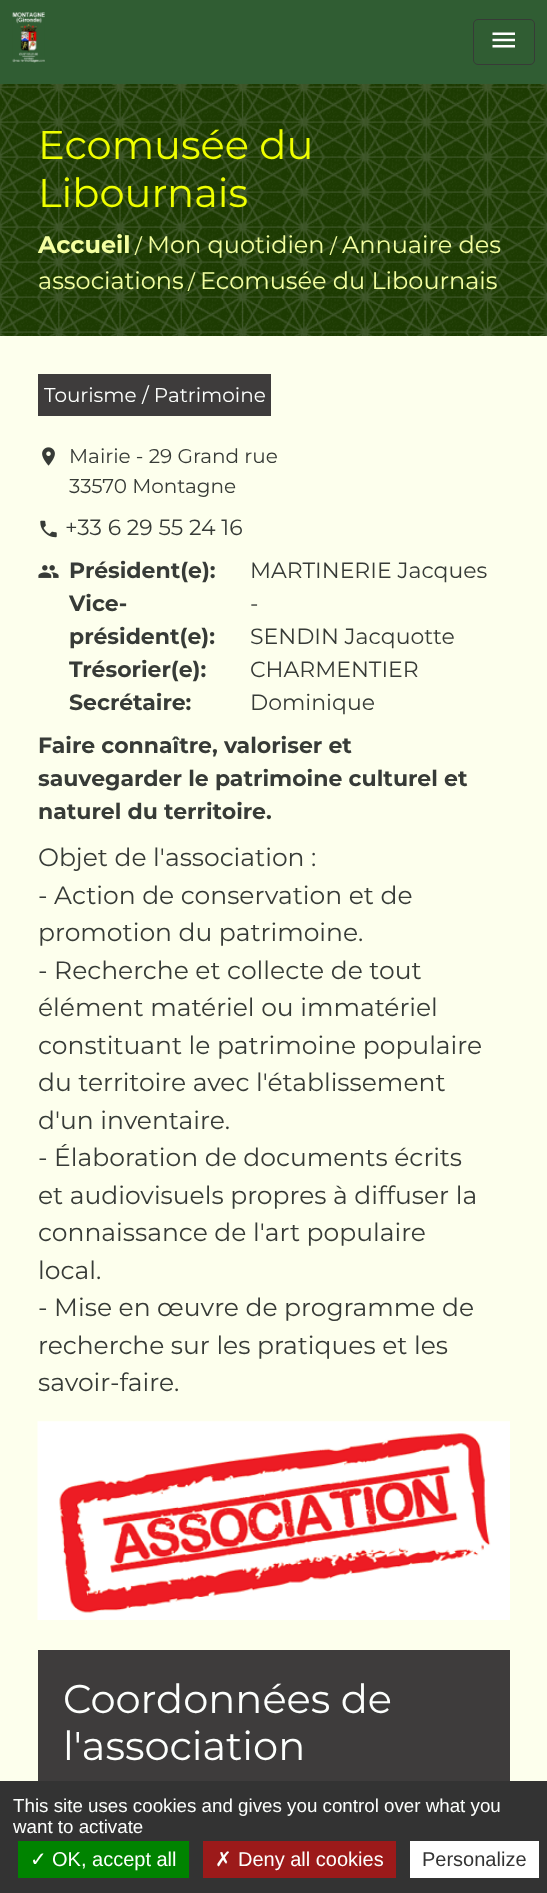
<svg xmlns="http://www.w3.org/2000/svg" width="547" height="1893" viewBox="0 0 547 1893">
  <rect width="100%" height="100%" fill="rgb(29,59,2)"/>
  <rect x="0" y="0" width="547" height="84" fill="rgb(48,93,51)"/>
  <image x="12" y="12" width="33" height="51" href="pic1.png"/>
  <rect x="473.5" y="19.5" width="61" height="45" rx="4.5" fill="none" stroke="rgb(55,59,55)"/>
  <image x="492" y="32" width="23" height="16" href="pic2.png"/>
  <image x="0" y="84" width="547" height="252" href="pic3.png"/>
  <g font-family="Montserrat" font-size="40" fill="rgb(239,255,0)">
    <text>
      <tspan x="38" y="159">Ecomusée du</tspan>
      <tspan x="38" y="207">Libournais</tspan>
    </text>
  </g>
  <text x="38" y="253" font-family="Montserrat" font-size="24" font-weight="bold" fill="rgb(244,255,161)">Accueil</text>
  <text x="135" y="253" font-family="Montserrat" font-size="20" fill="rgb(244,255,161)">/</text>
  <text x="147" y="253" font-family="Montserrat" font-size="24" fill="rgb(244,255,161)">Mon quotidien</text>
  <text x="330" y="253" font-family="Montserrat" font-size="20" fill="rgb(244,255,161)">/</text>
  <g font-family="Montserrat" font-size="24" fill="rgb(244,255,161)">
    <text x="342" y="253">Annuaire des</text>
    <text x="38" y="289">associations</text>
  </g>
  <text x="188" y="289" font-family="Montserrat" font-size="20" fill="rgb(244,255,161)">/</text>
  <text x="200" y="289" font-family="Montserrat" font-size="24" fill="rgb(244,255,161)">Ecomusée du Libournais</text>
  <rect x="0" y="336" width="547" height="1445" fill="rgb(253,255,237)"/>
  <rect x="38" y="374" width="233" height="42" fill="rgb(62,60,60)"/>
  <text x="44" y="402" font-family="Montserrat" font-size="20" fill="rgb(253,255,253)">Tourisme / Patrimoine</text>
  <image x="42" y="447" width="13" height="19" href="pic4.png"/>
  <g font-family="Montserrat" font-size="20" fill="rgb(55,59,55)">
    <text>
      <tspan x="69" y="463">Mairie - 29 Grand rue</tspan>
      <tspan x="69" y="493">33570 Montagne</tspan>
    </text>
  </g>
  <image x="40" y="520" width="17" height="18" href="pic5.png"/>
  <text x="65" y="535" font-family="Montserrat" font-size="22" fill="rgb(55,59,55)">+33 6 29 55 24 16</text>
  <image x="38" y="565" width="21" height="13" href="pic6.png"/>
  <g font-family="Montserrat" font-size="22" font-weight="bold" fill="rgb(55,59,55)">
    <text>
      <tspan x="69" y="578">Président(e):</tspan>
      <tspan x="69" y="611">Vice-</tspan>
      <tspan x="69" y="644">président(e):</tspan>
      <tspan x="69" y="677">Trésorier(e):</tspan>
      <tspan x="69" y="710">Secrétaire:</tspan>
    </text>
  </g>
  <g font-family="Montserrat" font-size="22" fill="rgb(55,59,55)">
    <text>
      <tspan x="250" y="578">MARTINERIE Jacques</tspan>
      <tspan x="250" y="611">-</tspan>
      <tspan x="250" y="644">SENDIN Jacquotte</tspan>
      <tspan x="250" y="677">CHARMENTIER</tspan>
      <tspan x="250" y="710">Dominique</tspan>
    </text>
  </g>
  <g font-family="Montserrat" font-size="22" font-weight="bold" fill="rgb(55,59,55)">
    <text>
      <tspan x="38" y="753">Faire connaître, valoriser et</tspan>
      <tspan x="38" y="786">sauvegarder le patrimoine culturel et</tspan>
      <tspan x="38" y="819">naturel du territoire.</tspan>
    </text>
  </g>
  <g font-family="Montserrat" font-size="25" fill="rgb(55,59,55)">
    <text>
      <tspan x="38" y="866">Objet de l'association :</tspan>
      <tspan x="38" y="904">- Action de conservation et de</tspan>
      <tspan x="38" y="941">promotion du patrimoine.</tspan>
      <tspan x="38" y="979">- Recherche et collecte de tout</tspan>
      <tspan x="38" y="1016">élément matériel ou immatériel</tspan>
      <tspan x="38" y="1054">constituant le patrimoine populaire</tspan>
      <tspan x="38" y="1091">du territoire avec l'établissement</tspan>
      <tspan x="38" y="1129">d'un inventaire.</tspan>
      <tspan x="38" y="1166">- Élaboration de documents écrits</tspan>
      <tspan x="38" y="1204">et audiovisuels propres à diffuser la</tspan>
      <tspan x="38" y="1241">connaissance de l'art populaire</tspan>
      <tspan x="38" y="1279">local.</tspan>
      <tspan x="38" y="1316">- Mise en œuvre de programme de</tspan>
      <tspan x="38" y="1354">recherche sur les pratiques et les</tspan>
      <tspan x="38" y="1391">savoir-faire.</tspan>
    </text>
  </g>
  <image x="37" y="1421" width="473" height="199" href="pic7.png"/>
  <rect x="38" y="1650" width="472" height="131" fill="rgb(62,60,60)"/>
  <g font-family="Montserrat" font-size="40" fill="rgb(253,255,253)">
    <text>
      <tspan x="63" y="1713">Coordonnées de</tspan>
      <tspan x="63" y="1760">l'association</tspan>
    </text>
  </g>
  <rect x="0" y="1781" width="547" height="112" fill="rgb(51,51,51)"/>
  <g font-family="Liberation Sans" font-size="18.75" fill="rgb(253,255,253)">
    <text>
      <tspan x="13" y="1812">This site uses cookies and gives you control over what you</tspan>
      <tspan x="13" y="1833">want to activate</tspan>
    </text>
  </g>
  <rect x="18" y="1841" width="171" height="37" fill="rgb(0,131,0)"/>
  <text x="30" y="1866" font-family="DejaVu Sans" font-size="20" fill="rgb(253,255,253)">✓</text>
  <text x="52" y="1866" font-family="Liberation Sans" font-size="20" fill="rgb(253,255,253)">OK, accept all</text>
  <rect x="203" y="1841" width="193" height="37" fill="rgb(156,26,26)"/>
  <text x="215" y="1866" font-family="DejaVu Sans" font-size="20" fill="rgb(253,255,253)">✗</text>
  <text x="238" y="1866" font-family="Liberation Sans" font-size="20" fill="rgb(253,255,253)">Deny all cookies</text>
  <rect x="410" y="1841" width="129" height="37" fill="rgb(255,255,255)"/>
  <text x="422" y="1866" font-family="Liberation Sans" font-size="20" fill="rgb(51,51,51)">Personalize</text>
</svg>
